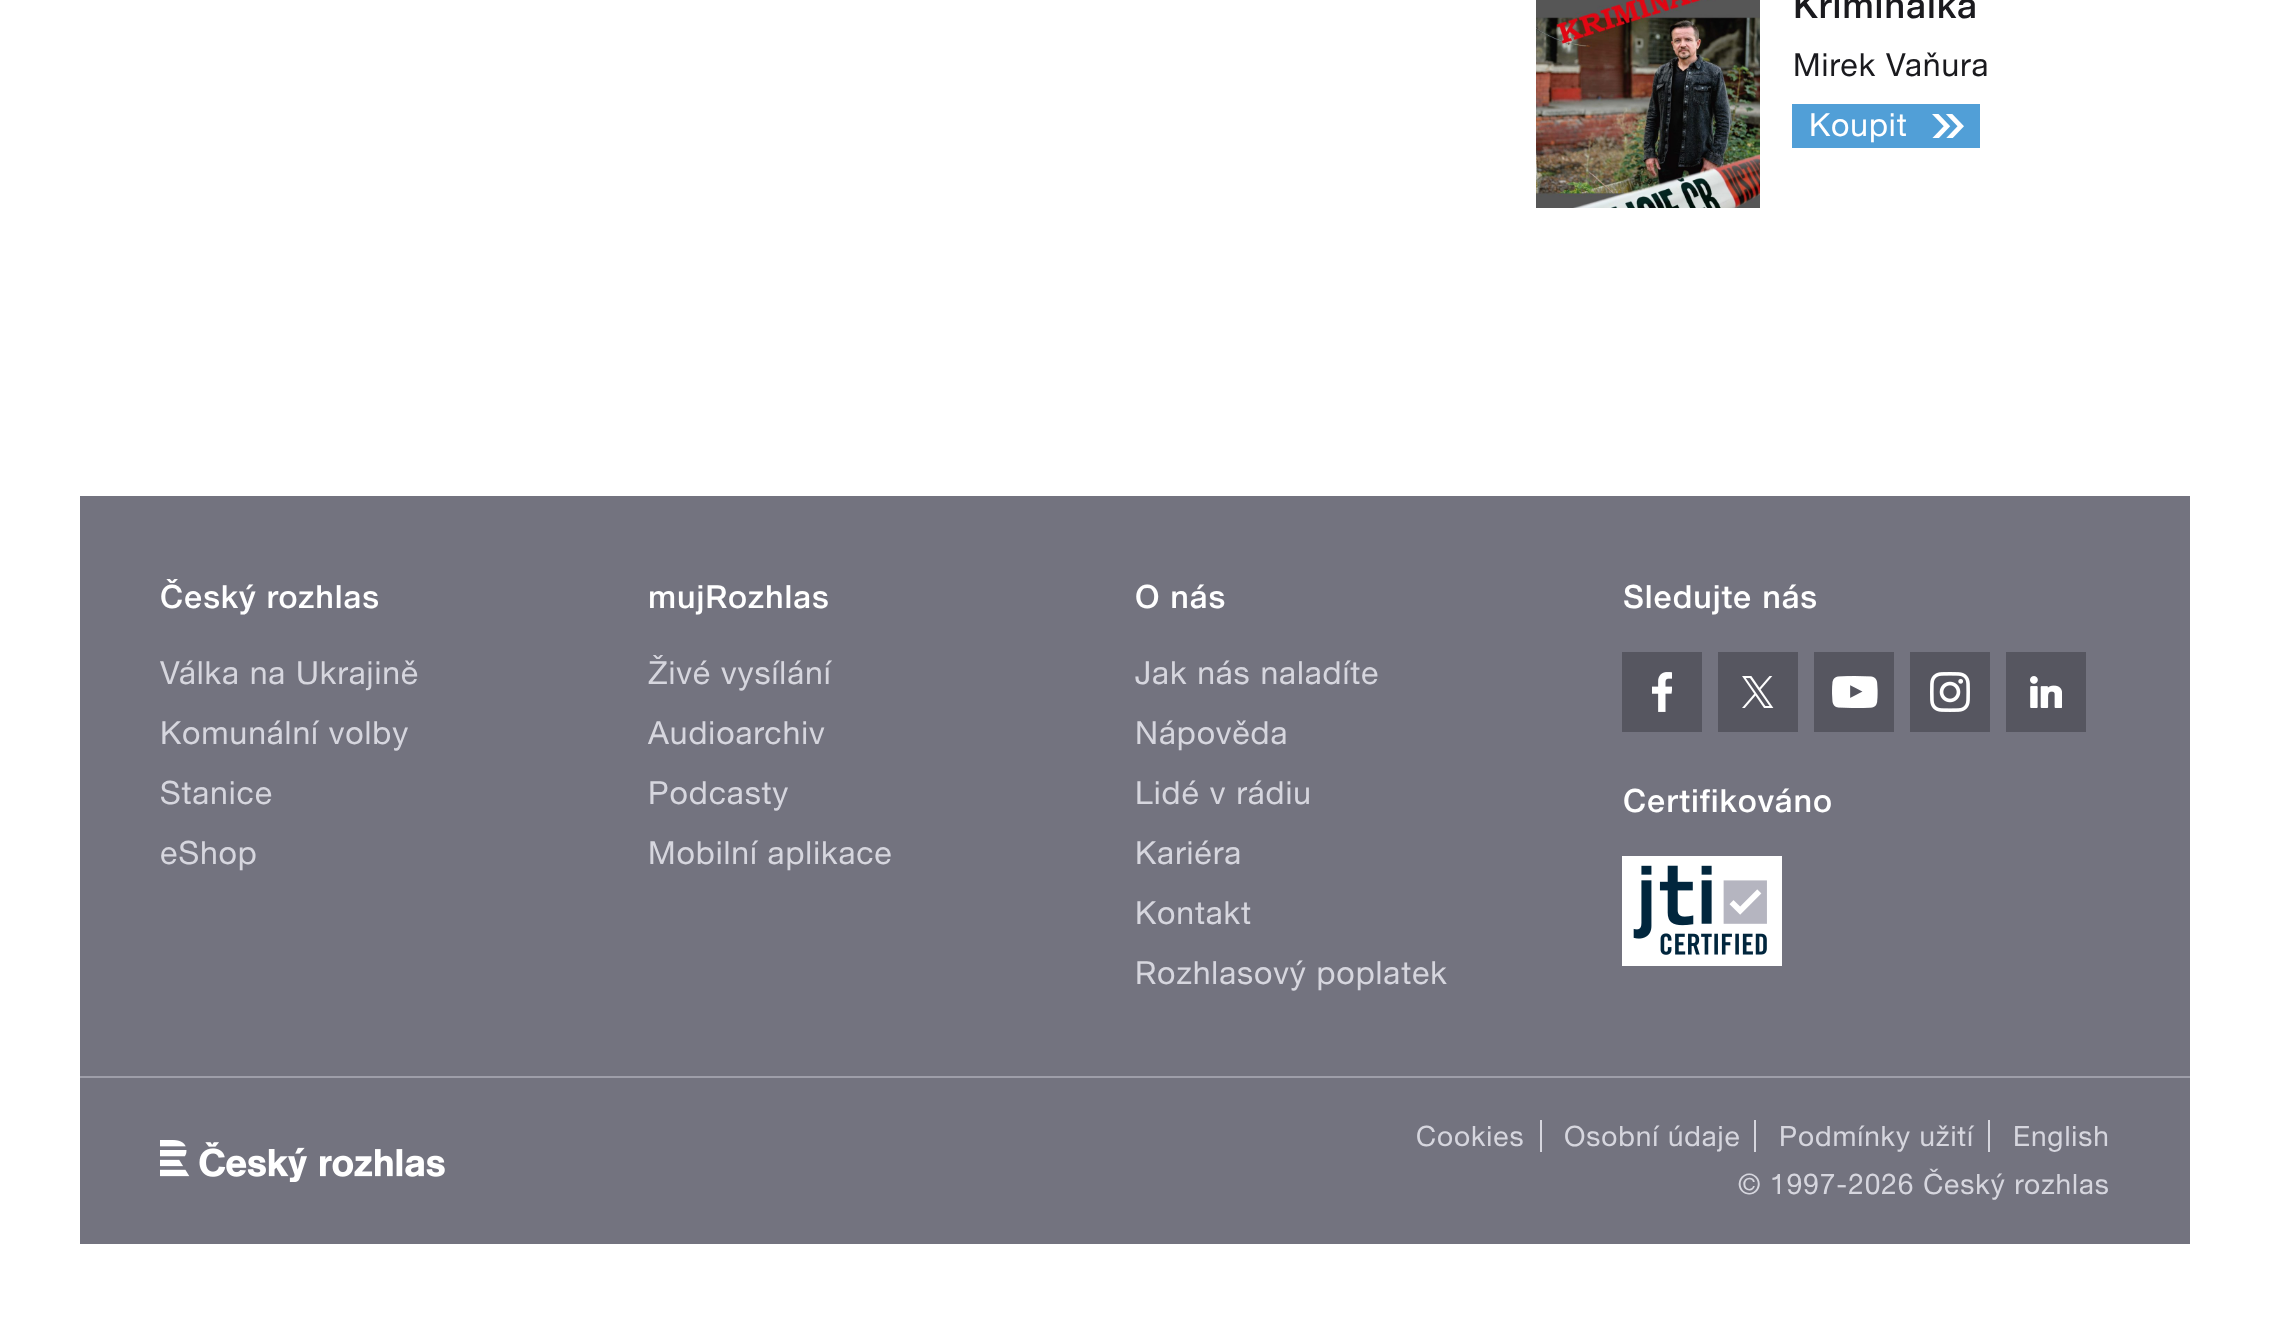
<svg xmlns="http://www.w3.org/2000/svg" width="2269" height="1340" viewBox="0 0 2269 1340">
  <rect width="100%" height="100%" fill="rgb(255,255,255)"/>
  <image x="1536" y="0" width="224" height="208" href="pic1.png"/>
  <text x="1793" y="18" font-family="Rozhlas" font-size="36" font-weight="500" letter-spacing="0.95" fill="rgb(26,26,30)">Kriminálka</text>
  <text x="1793" y="76" font-family="Rozhlas" font-size="32" letter-spacing="0.95" fill="rgb(26,26,30)">Mirek Vaňura</text>
  <rect x="1792" y="104" width="188" height="44" fill="rgb(81,159,215)"/>
  <text x="1809" y="136" font-family="Rozhlas" font-size="32" letter-spacing="0.95" fill="rgb(255,255,255)">Koupit</text>
  <image x="1932" y="114" width="32" height="24" href="pic2.png"/>
  <rect x="80" y="496" width="2110" height="748" fill="rgb(115,115,127)"/>
  <text x="160" y="608" font-family="Rozhlas" font-size="32" font-weight="500" letter-spacing="0.95" fill="rgb(255,255,255)">Český rozhlas</text>
  <g font-family="Rozhlas" font-size="32" letter-spacing="0.95" fill="rgb(214,214,222)">
    <text>
      <tspan x="160" y="684">Válka na Ukrajině</tspan>
      <tspan x="160" y="744">Komunální volby</tspan>
      <tspan x="160" y="804">Stanice</tspan>
      <tspan x="160" y="864">eShop</tspan>
    </text>
  </g>
  <text x="648" y="608" font-family="Rozhlas" font-size="32" font-weight="500" letter-spacing="0.95" fill="rgb(255,255,255)">mujRozhlas</text>
  <g font-family="Rozhlas" font-size="32" letter-spacing="0.95" fill="rgb(214,214,222)">
    <text>
      <tspan x="648" y="684">Živé vysílání</tspan>
      <tspan x="648" y="744">Audioarchiv</tspan>
      <tspan x="648" y="804">Podcasty</tspan>
      <tspan x="648" y="864">Mobilní aplikace</tspan>
    </text>
  </g>
  <text x="1135" y="608" font-family="Rozhlas" font-size="32" font-weight="500" letter-spacing="0.95" fill="rgb(255,255,255)">O nás</text>
  <g font-family="Rozhlas" font-size="32" letter-spacing="0.95" fill="rgb(214,214,222)">
    <text>
      <tspan x="1135" y="684">Jak nás naladíte</tspan>
      <tspan x="1135" y="744">Nápověda</tspan>
      <tspan x="1135" y="804">Lidé v rádiu</tspan>
      <tspan x="1135" y="864">Kariéra</tspan>
      <tspan x="1135" y="924">Kontakt</tspan>
      <tspan x="1135" y="984">Rozhlasový poplatek</tspan>
    </text>
  </g>
  <text x="1623" y="608" font-family="Rozhlas" font-size="32" font-weight="500" letter-spacing="0.95" fill="rgb(255,255,255)">Sledujte nás</text>
  <rect x="1622" y="652" width="80" height="80" fill="rgb(86,86,96)"/>
  <image x="1652" y="672" width="20" height="40" href="pic3.png"/>
  <rect x="1718" y="652" width="80" height="80" fill="rgb(86,86,96)"/>
  <image x="1742" y="676" width="32" height="32" href="pic4.png"/>
  <rect x="1814" y="652" width="80" height="80" fill="rgb(86,86,96)"/>
  <image x="1832" y="676" width="46" height="32" href="pic5.png"/>
  <rect x="1910" y="652" width="80" height="80" fill="rgb(86,86,96)"/>
  <image x="1930" y="672" width="40" height="40" href="pic6.png"/>
  <rect x="2006" y="652" width="80" height="80" fill="rgb(86,86,96)"/>
  <image x="2030" y="676" width="32" height="32" href="pic7.png"/>
  <text x="1623" y="812" font-family="Rozhlas" font-size="32" font-weight="500" letter-spacing="0.95" fill="rgb(255,255,255)">Certifikováno</text>
  <image x="1622" y="856" width="160" height="110" href="pic8.png"/>
  <rect x="80" y="1076" width="2110" height="2" fill="rgb(158,158,169)"/>
  <image x="160" y="1140" width="285" height="42" href="pic9.png"/>
  <text x="1416" y="1146" font-family="Rozhlas" font-size="28" letter-spacing="0.95" fill="rgb(214,214,222)">Cookies</text>
  <rect x="1540" y="1120" width="2" height="32" fill="rgb(214,214,222)"/>
  <text x="1564" y="1146" font-family="Rozhlas" font-size="28" letter-spacing="0.95" fill="rgb(214,214,222)">Osobní údaje</text>
  <rect x="1754" y="1120" width="2" height="32" fill="rgb(214,214,222)"/>
  <text x="1779" y="1146" font-family="Rozhlas" font-size="28" letter-spacing="0.95" fill="rgb(214,214,222)">Podmínky užití</text>
  <rect x="1988" y="1120" width="2" height="32" fill="rgb(214,214,222)"/>
  <g font-family="Rozhlas" font-size="28" letter-spacing="0.95" fill="rgb(214,214,222)">
    <text x="2013" y="1146">English</text>
    <text x="1738" y="1194">© 1997-2026 Český rozhlas</text>
  </g>
</svg>
